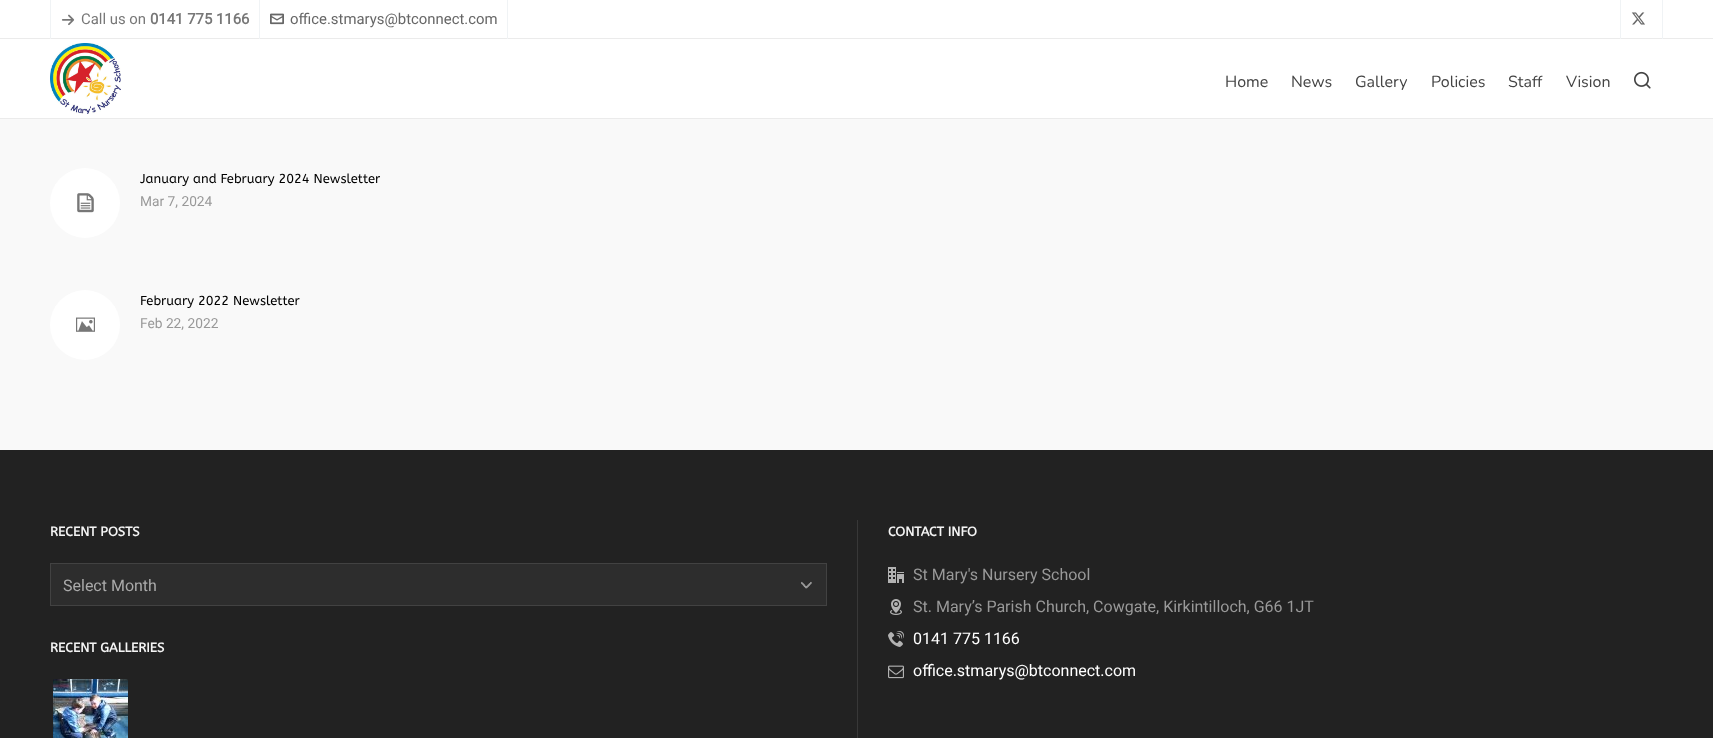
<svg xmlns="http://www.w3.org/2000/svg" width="1713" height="738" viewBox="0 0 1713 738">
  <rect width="100%" height="100%" fill="rgb(249,249,249)"/>
  <rect x="0" y="0" width="1713" height="38" fill="rgb(255,255,255)"/>
  <rect x="0" y="38" width="1713" height="1" fill="rgb(235,235,235)"/>
  <rect x="259" y="0" width="1" height="39" fill="rgb(240,243,245)"/>
  <rect x="50" y="0" width="1" height="39" fill="rgb(240,243,245)"/>
  <image x="61" y="14" width="14" height="12" href="pic1.png"/>
  <text x="81" y="24" font-family="Roboto" font-size="14.9" fill="rgb(119,119,119)">Call us on</text>
  <text x="150" y="24" font-family="Roboto" font-size="14.9" font-weight="bold" fill="rgb(119,119,119)">0141 775 1166</text>
  <rect x="507" y="0" width="1" height="39" fill="rgb(240,243,245)"/>
  <image x="270" y="13" width="14" height="12" href="pic2.png"/>
  <text x="290" y="24" font-family="Roboto" font-size="14.9" fill="rgb(102,102,102)">office.stmarys@btconnect.com</text>
  <rect x="1662" y="0" width="1" height="39" fill="rgb(240,243,245)"/>
  <rect x="1620" y="0" width="1" height="39" fill="rgb(240,243,245)"/>
  <image x="1631" y="12" width="14" height="13" href="pic3.png"/>
  <rect x="0" y="39" width="1713" height="79" fill="rgb(255,255,255)"/>
  <rect x="0" y="118" width="1713" height="1" fill="rgb(235,235,235)"/>
  <image x="50" y="43" width="71" height="71" href="pic4.png"/>
  <g font-family="Nunito" font-size="16" font-weight="200" fill="rgb(68,68,68)">
    <text x="1225" y="87">Home</text>
    <text x="1291" y="87">News</text>
    <text x="1355" y="87">Gallery</text>
    <text x="1431" y="87">Policies</text>
    <text x="1508" y="87">Staff</text>
    <text x="1566" y="87">Vision</text>
  </g>
  <image x="1634" y="71" width="17" height="18" href="pic5.png"/>
  <circle cx="85" cy="203" r="35" fill="rgb(255,255,255)"/>
  <image x="77" y="193" width="17" height="20" href="pic6.png"/>
  <text x="140" y="183" font-family="ABeeZee" font-size="13" fill="rgb(0,0,0)">January and February 2024 Newsletter</text>
  <text x="140" y="206" font-family="Roboto" font-size="13.75" fill="rgb(153,153,153)">Mar 7, 2024</text>
  <circle cx="85" cy="325" r="35" fill="rgb(255,255,255)"/>
  <image x="76" y="317" width="19" height="15" href="pic7.png"/>
  <text x="140" y="305" font-family="ABeeZee" font-size="13" fill="rgb(0,0,0)">February 2022 Newsletter</text>
  <text x="140" y="328" font-family="Roboto" font-size="13.75" fill="rgb(153,153,153)">Feb 22, 2022</text>
  <rect x="0" y="450" width="1713" height="288" fill="rgb(34,34,34)"/>
  <text x="50" y="536" font-family="ABeeZee" font-size="13" font-weight="bold" fill="rgb(244,244,244)">RECENT POSTS</text>
  <rect x="51" y="564" width="775" height="41" fill="rgb(45,45,45)"/>
  <image x="801" y="581" width="11" height="8" href="pic8.png"/>
  <rect x="50.5" y="563.5" width="776" height="42" fill="none" stroke="rgb(66,66,66)"/>
  <text x="63" y="591" font-family="Roboto" font-size="16" fill="rgb(170,170,170)">Select Month</text>
  <text x="50" y="652" font-family="ABeeZee" font-size="13" font-weight="bold" fill="rgb(244,244,244)">RECENT GALLERIES</text>
  <image x="53" y="679" width="75" height="59" href="pic9.png"/>
  <rect x="857" y="520" width="1" height="218" fill="rgb(56,56,56)"/>
  <text x="888" y="536" font-family="ABeeZee" font-size="13" font-weight="bold" fill="rgb(244,244,244)">CONTACT INFO</text>
  <image x="888" y="567" width="16" height="16" href="pic10.png"/>
  <text x="913" y="580" font-family="Roboto" font-size="16" fill="rgb(153,153,153)">St Mary's Nursery School</text>
  <image x="890" y="599" width="12" height="16" href="pic11.png"/>
  <text x="913" y="612" font-family="Roboto" font-size="16" fill="rgb(153,153,153)">St. Mary’s Parish Church, Cowgate, Kirkintilloch, G66 1JT</text>
  <image x="888" y="631" width="16" height="16" href="pic12.png"/>
  <text x="913" y="644" font-family="Roboto" font-size="16" fill="rgb(255,255,255)">0141 775 1166</text>
  <image x="888" y="665" width="16" height="14" href="pic13.png"/>
  <text x="913" y="676" font-family="Roboto" font-size="16" fill="rgb(255,255,255)">office.stmarys@btconnect.com</text>
</svg>
